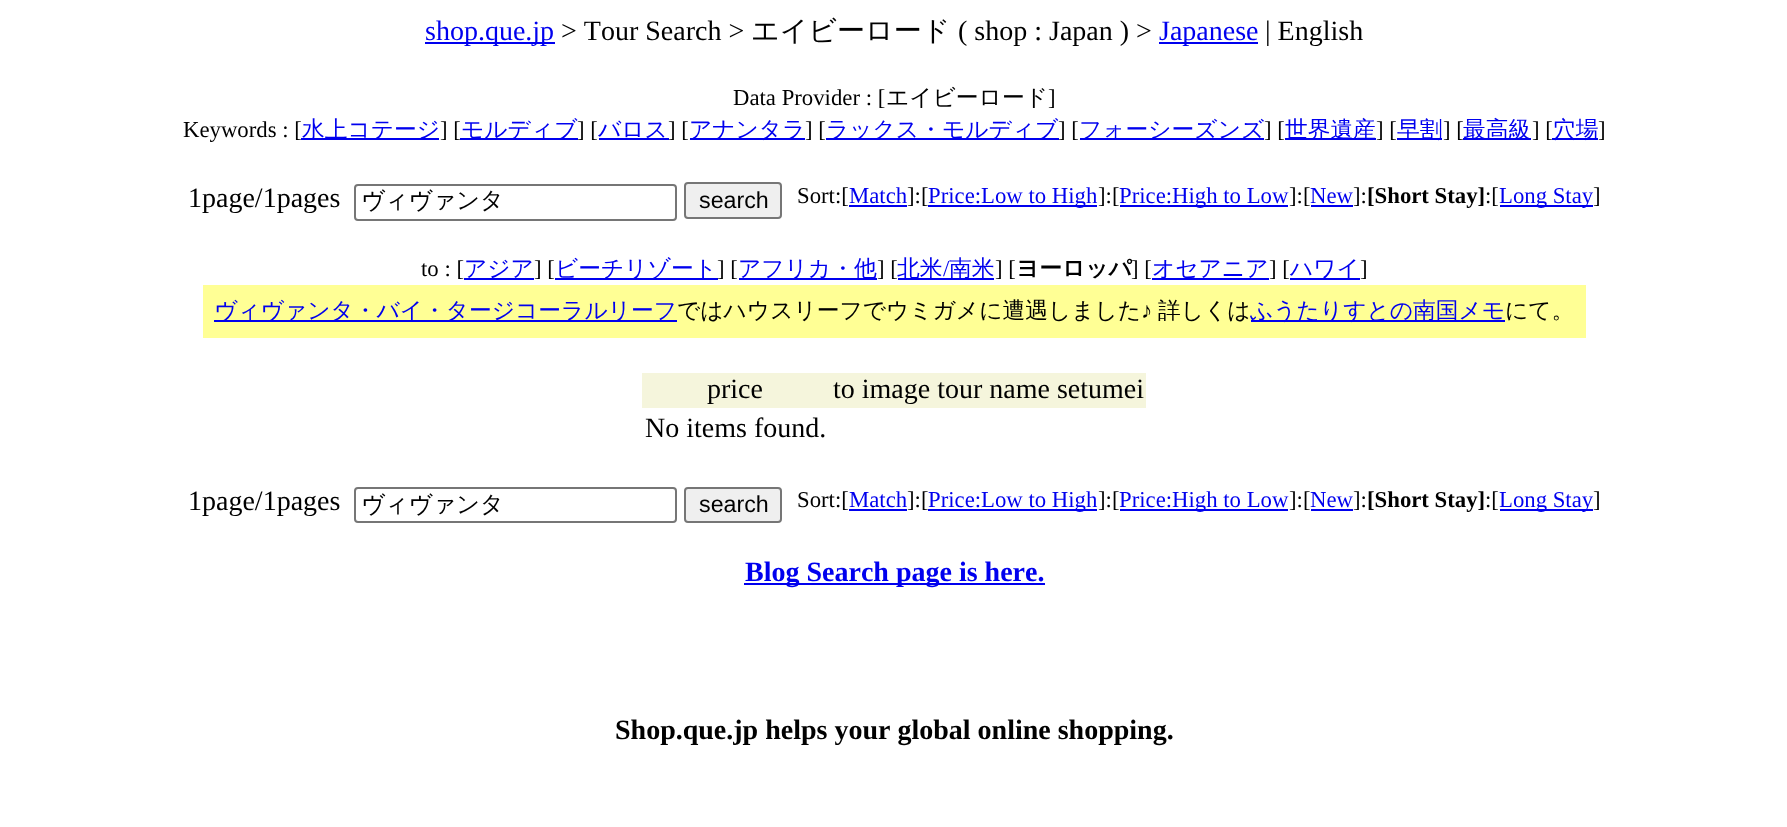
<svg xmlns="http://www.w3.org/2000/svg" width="1787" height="827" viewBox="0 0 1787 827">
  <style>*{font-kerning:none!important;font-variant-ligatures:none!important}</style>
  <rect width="100%" height="100%" fill="rgb(255,255,255)"/>
  <rect x="425" y="42" width="130" height="2" fill="rgb(0,0,238)"/>
  <text x="425" y="40" font-family="Liberation Serif" font-size="28" fill="rgb(0,0,238)">shop.que.jp</text>
  <text x="561" y="40" font-family="Liberation Serif" font-size="28" fill="rgb(0,0,0)">&gt; Tour Search &gt;</text>
  <text x="751" y="40" font-family="WenQuanYi Zen Hei" font-size="28" font-weight="500" fill="rgb(0,0,0)">エイビーロード</text>
  <text x="958" y="40" font-family="Liberation Serif" font-size="28" fill="rgb(0,0,0)">( shop : Japan ) &gt;</text>
  <rect x="1159" y="42" width="99" height="2" fill="rgb(0,0,238)"/>
  <text x="1159" y="40" font-family="Liberation Serif" font-size="28" fill="rgb(0,0,238)">Japanese</text>
  <text x="1265" y="40" font-family="Liberation Serif" font-size="28" fill="rgb(0,0,0)">| English</text>
  <text x="733" y="105" font-family="Liberation Serif" font-size="22.75" fill="rgb(0,0,0)">Data Provider : [</text>
  <text x="886" y="105" font-family="WenQuanYi Zen Hei" font-size="22.75" font-weight="500" fill="rgb(0,0,0)">エイビーロード</text>
  <g font-family="Liberation Serif" font-size="22.75" fill="rgb(0,0,0)">
    <text x="1048" y="105">]</text>
    <text x="183" y="137">Keywords : [</text>
  </g>
  <rect x="301" y="138" width="138" height="2" fill="rgb(0,0,238)"/>
  <text x="302" y="137" font-family="WenQuanYi Zen Hei" font-size="22.75" font-weight="500" fill="rgb(0,0,238)">水上コテージ</text>
  <text x="440" y="137" font-family="Liberation Serif" font-size="22.75" fill="rgb(0,0,0)">] [</text>
  <rect x="460" y="138" width="118" height="2" fill="rgb(0,0,238)"/>
  <text x="461" y="137" font-family="WenQuanYi Zen Hei" font-size="22.75" font-weight="500" fill="rgb(0,0,238)">モルディブ</text>
  <text x="577" y="137" font-family="Liberation Serif" font-size="22.75" fill="rgb(0,0,0)">] [</text>
  <rect x="599" y="138" width="70" height="2" fill="rgb(0,0,238)"/>
  <text x="598" y="137" font-family="WenQuanYi Zen Hei" font-size="22.75" font-weight="500" fill="rgb(0,0,238)">バロス</text>
  <text x="668" y="137" font-family="Liberation Serif" font-size="22.75" fill="rgb(0,0,0)">] [</text>
  <rect x="690" y="138" width="115" height="2" fill="rgb(0,0,238)"/>
  <text x="689" y="137" font-family="WenQuanYi Zen Hei" font-size="22.75" font-weight="500" fill="rgb(0,0,238)">アナンタラ</text>
  <text x="805" y="137" font-family="Liberation Serif" font-size="22.75" fill="rgb(0,0,0)">] [</text>
  <rect x="826" y="138" width="233" height="2" fill="rgb(0,0,238)"/>
  <text x="826" y="137" font-family="WenQuanYi Zen Hei" font-size="22.75" font-weight="500" fill="rgb(0,0,238)">ラックス・モルディブ</text>
  <text x="1058" y="137" font-family="Liberation Serif" font-size="22.75" fill="rgb(0,0,0)">] [</text>
  <rect x="1080" y="138" width="184" height="2" fill="rgb(0,0,238)"/>
  <text x="1079" y="137" font-family="WenQuanYi Zen Hei" font-size="22.75" font-weight="500" fill="rgb(0,0,238)">フォーシーズンズ</text>
  <text x="1264" y="137" font-family="Liberation Serif" font-size="22.75" fill="rgb(0,0,0)">] [</text>
  <rect x="1285" y="138" width="91" height="2" fill="rgb(0,0,238)"/>
  <text x="1285" y="137" font-family="WenQuanYi Zen Hei" font-size="22.75" font-weight="500" fill="rgb(0,0,238)">世界遺産</text>
  <text x="1376" y="137" font-family="Liberation Serif" font-size="22.75" fill="rgb(0,0,0)">] [</text>
  <rect x="1397" y="138" width="45" height="2" fill="rgb(0,0,238)"/>
  <text x="1397" y="137" font-family="WenQuanYi Zen Hei" font-size="22.75" font-weight="500" fill="rgb(0,0,238)">早割</text>
  <text x="1443" y="137" font-family="Liberation Serif" font-size="22.75" fill="rgb(0,0,0)">] [</text>
  <rect x="1463" y="138" width="68" height="2" fill="rgb(0,0,238)"/>
  <text x="1463" y="137" font-family="WenQuanYi Zen Hei" font-size="22.75" font-weight="500" fill="rgb(0,0,238)">最高級</text>
  <text x="1532" y="137" font-family="Liberation Serif" font-size="22.75" fill="rgb(0,0,0)">] [</text>
  <rect x="1552" y="138" width="46" height="2" fill="rgb(0,0,238)"/>
  <text x="1553" y="137" font-family="WenQuanYi Zen Hei" font-size="22.75" font-weight="500" fill="rgb(0,0,238)">穴場</text>
  <text x="1598" y="137" font-family="Liberation Serif" font-size="22.75" fill="rgb(0,0,0)">]</text>
  <text x="188" y="207" font-family="Liberation Serif" font-size="28" fill="rgb(0,0,0)">1page/1pages</text>
  <rect x="355" y="185" width="321" height="35" rx="3" fill="none" stroke="rgb(118,118,118)" stroke-width="2"/>
  <text x="361" y="208" font-family="WenQuanYi Zen Hei" font-size="23.25" font-weight="500" fill="rgb(0,0,0)">ヴィヴァンタ</text>
  <rect x="685" y="183" width="96" height="35" rx="3" fill="rgb(239,239,239)" stroke="rgb(118,118,118)" stroke-width="2"/>
  <text x="699" y="208" font-family="Liberation Sans" font-size="23.25" fill="rgb(0,0,0)">search</text>
  <text x="797" y="203" font-family="Liberation Serif" font-size="22.75" fill="rgb(0,0,0)">Sort:[</text>
  <text x="849" y="203" font-family="Liberation Serif" font-size="22.75" fill="rgb(0,0,238)">Match</text>
  <text x="907" y="203" font-family="Liberation Serif" font-size="22.75" fill="rgb(0,0,0)">]:[</text>
  <rect x="849" y="205" width="58" height="2" fill="rgb(0,0,238)"/>
  <rect x="928" y="205" width="169" height="2" fill="rgb(0,0,238)"/>
  <text x="928" y="203" font-family="Liberation Serif" font-size="22.75" fill="rgb(0,0,238)">Price:Low to High</text>
  <text x="1098" y="203" font-family="Liberation Serif" font-size="22.75" fill="rgb(0,0,0)">]:[</text>
  <rect x="1120" y="205" width="168" height="2" fill="rgb(0,0,238)"/>
  <text x="1119" y="203" font-family="Liberation Serif" font-size="22.75" fill="rgb(0,0,238)">Price:High to Low</text>
  <text x="1289" y="203" font-family="Liberation Serif" font-size="22.75" fill="rgb(0,0,0)">]:[</text>
  <text x="1310" y="203" font-family="Liberation Serif" font-size="22.75" fill="rgb(0,0,238)">New</text>
  <text x="1353" y="203" font-family="Liberation Serif" font-size="22.75" fill="rgb(0,0,0)">]:</text>
  <rect x="1311" y="205" width="42" height="2" fill="rgb(0,0,238)"/>
  <text x="1367" y="203" font-family="Liberation Serif" font-size="22.75" font-weight="bold" fill="rgb(0,0,0)">[Short Stay]</text>
  <text x="1485" y="203" font-family="Liberation Serif" font-size="22.75" fill="rgb(0,0,0)">:[</text>
  <rect x="1500" y="205" width="93" height="2" fill="rgb(0,0,238)"/>
  <text x="1499" y="203" font-family="Liberation Serif" font-size="22.75" fill="rgb(0,0,238)">Long Stay</text>
  <g font-family="Liberation Serif" font-size="22.75" fill="rgb(0,0,0)">
    <text x="1593" y="203">]</text>
    <text x="421" y="276">to : [</text>
  </g>
  <rect x="464" y="278" width="70" height="2" fill="rgb(0,0,238)"/>
  <text x="464" y="276" font-family="WenQuanYi Zen Hei" font-size="22.75" font-weight="500" fill="rgb(0,0,238)">アジア</text>
  <text x="534" y="276" font-family="Liberation Serif" font-size="22.75" fill="rgb(0,0,0)">] [</text>
  <rect x="555" y="278" width="163" height="2" fill="rgb(0,0,238)"/>
  <text x="555" y="276" font-family="WenQuanYi Zen Hei" font-size="22.75" font-weight="500" fill="rgb(0,0,238)">ビーチリゾート</text>
  <text x="717" y="276" font-family="Liberation Serif" font-size="22.75" fill="rgb(0,0,0)">] [</text>
  <rect x="739" y="278" width="138" height="2" fill="rgb(0,0,238)"/>
  <text x="738" y="276" font-family="WenQuanYi Zen Hei" font-size="22.75" font-weight="500" fill="rgb(0,0,238)">アフリカ・他</text>
  <text x="877" y="276" font-family="Liberation Serif" font-size="22.75" fill="rgb(0,0,0)">] [</text>
  <rect x="898" y="278" width="96" height="2" fill="rgb(0,0,238)"/>
  <text x="897" y="276" font-family="WenQuanYi Zen Hei" font-size="22.75" font-weight="500" fill="rgb(0,0,238)">北米</text>
  <text x="943" y="276" font-family="Liberation Serif" font-size="22.75" fill="rgb(0,0,238)">/</text>
  <text x="949" y="276" font-family="WenQuanYi Zen Hei" font-size="22.75" font-weight="500" fill="rgb(0,0,238)">南米</text>
  <text x="995" y="276" font-family="Liberation Serif" font-size="22.75" fill="rgb(0,0,0)">] [</text>
  <text x="1016" y="276" font-family="WenQuanYi Zen Hei" font-size="22.75" font-weight="bold" fill="rgb(0,0,0)">ヨーロッパ</text>
  <text x="1131" y="276" font-family="Liberation Serif" font-size="22.75" fill="rgb(0,0,0)">] [</text>
  <rect x="1152" y="278" width="117" height="2" fill="rgb(0,0,238)"/>
  <text x="1152" y="276" font-family="WenQuanYi Zen Hei" font-size="22.75" font-weight="500" fill="rgb(0,0,238)">オセアニア</text>
  <text x="1269" y="276" font-family="Liberation Serif" font-size="22.75" fill="rgb(0,0,0)">] [</text>
  <rect x="1290" y="278" width="70" height="2" fill="rgb(0,0,238)"/>
  <text x="1290" y="276" font-family="WenQuanYi Zen Hei" font-size="22.75" font-weight="500" fill="rgb(0,0,238)">ハワイ</text>
  <text x="1360" y="276" font-family="Liberation Serif" font-size="22.75" fill="rgb(0,0,0)">]</text>
  <rect x="203" y="285" width="1383" height="53" fill="rgb(255,255,149)"/>
  <rect x="214" y="320" width="463" height="2" fill="rgb(0,0,238)"/>
  <text x="214" y="318" font-family="WenQuanYi Zen Hei" font-size="22.75" font-weight="500" fill="rgb(0,0,238)">ヴィヴァンタ・バイ・タージコーラルリーフ</text>
  <text x="677" y="318" font-family="WenQuanYi Zen Hei" font-size="22.75" font-weight="500" fill="rgb(0,0,0)">ではハウスリーフでウミガメに遭遇しました</text>
  <text x="1141" y="318" font-family="Liberation Serif" font-size="22.75" fill="rgb(0,0,0)">♪</text>
  <text x="1158" y="318" font-family="WenQuanYi Zen Hei" font-size="22.75" font-weight="500" fill="rgb(0,0,0)">詳しくは</text>
  <rect x="1251" y="320" width="254" height="2" fill="rgb(0,0,238)"/>
  <text x="1250" y="318" font-family="WenQuanYi Zen Hei" font-size="22.75" font-weight="500" fill="rgb(0,0,238)">ふうたりすとの南国メモ</text>
  <text x="1505" y="318" font-family="WenQuanYi Zen Hei" font-size="22.75" font-weight="500" fill="rgb(0,0,0)">にて。</text>
  <rect x="642" y="373" width="504" height="35" fill="rgb(245,245,220)"/>
  <g font-family="Liberation Serif" font-size="28" fill="rgb(0,0,0)">
    <text x="707" y="398">price</text>
    <text x="833" y="398">to image tour name setumei</text>
    <text x="645" y="437">No items found.</text>
    <text x="188" y="510">1page/1pages</text>
  </g>
  <rect x="355" y="488" width="321" height="34" rx="3" fill="none" stroke="rgb(118,118,118)" stroke-width="2"/>
  <text x="361" y="512" font-family="WenQuanYi Zen Hei" font-size="23.25" font-weight="500" fill="rgb(0,0,0)">ヴィヴァンタ</text>
  <rect x="685" y="488" width="96" height="34" rx="3" fill="rgb(239,239,239)" stroke="rgb(118,118,118)" stroke-width="2"/>
  <text x="699" y="512" font-family="Liberation Sans" font-size="23.25" fill="rgb(0,0,0)">search</text>
  <text x="797" y="507" font-family="Liberation Serif" font-size="22.75" fill="rgb(0,0,0)">Sort:[</text>
  <text x="849" y="507" font-family="Liberation Serif" font-size="22.75" fill="rgb(0,0,238)">Match</text>
  <text x="907" y="507" font-family="Liberation Serif" font-size="22.75" fill="rgb(0,0,0)">]:[</text>
  <rect x="849" y="509" width="58" height="2" fill="rgb(0,0,238)"/>
  <rect x="928" y="509" width="169" height="2" fill="rgb(0,0,238)"/>
  <text x="928" y="507" font-family="Liberation Serif" font-size="22.75" fill="rgb(0,0,238)">Price:Low to High</text>
  <text x="1098" y="507" font-family="Liberation Serif" font-size="22.75" fill="rgb(0,0,0)">]:[</text>
  <rect x="1120" y="509" width="168" height="2" fill="rgb(0,0,238)"/>
  <text x="1119" y="507" font-family="Liberation Serif" font-size="22.75" fill="rgb(0,0,238)">Price:High to Low</text>
  <text x="1289" y="507" font-family="Liberation Serif" font-size="22.75" fill="rgb(0,0,0)">]:[</text>
  <text x="1310" y="507" font-family="Liberation Serif" font-size="22.75" fill="rgb(0,0,238)">New</text>
  <text x="1353" y="507" font-family="Liberation Serif" font-size="22.75" fill="rgb(0,0,0)">]:</text>
  <rect x="1311" y="509" width="42" height="2" fill="rgb(0,0,238)"/>
  <text x="1367" y="507" font-family="Liberation Serif" font-size="22.75" font-weight="bold" fill="rgb(0,0,0)">[Short Stay]</text>
  <text x="1485" y="507" font-family="Liberation Serif" font-size="22.75" fill="rgb(0,0,0)">:[</text>
  <rect x="1500" y="509" width="93" height="2" fill="rgb(0,0,238)"/>
  <text x="1499" y="507" font-family="Liberation Serif" font-size="22.75" fill="rgb(0,0,238)">Long Stay</text>
  <text x="1593" y="507" font-family="Liberation Serif" font-size="22.75" fill="rgb(0,0,0)">]</text>
  <rect x="744" y="583" width="301" height="2" fill="rgb(0,0,238)"/>
  <text x="745" y="581" font-family="Liberation Serif" font-size="28" font-weight="bold" fill="rgb(0,0,238)">Blog Search page is here.</text>
  <text x="615" y="739" font-family="Liberation Serif" font-size="28" font-weight="bold" fill="rgb(0,0,0)">Shop.que.jp helps your global online shopping.</text>
</svg>
